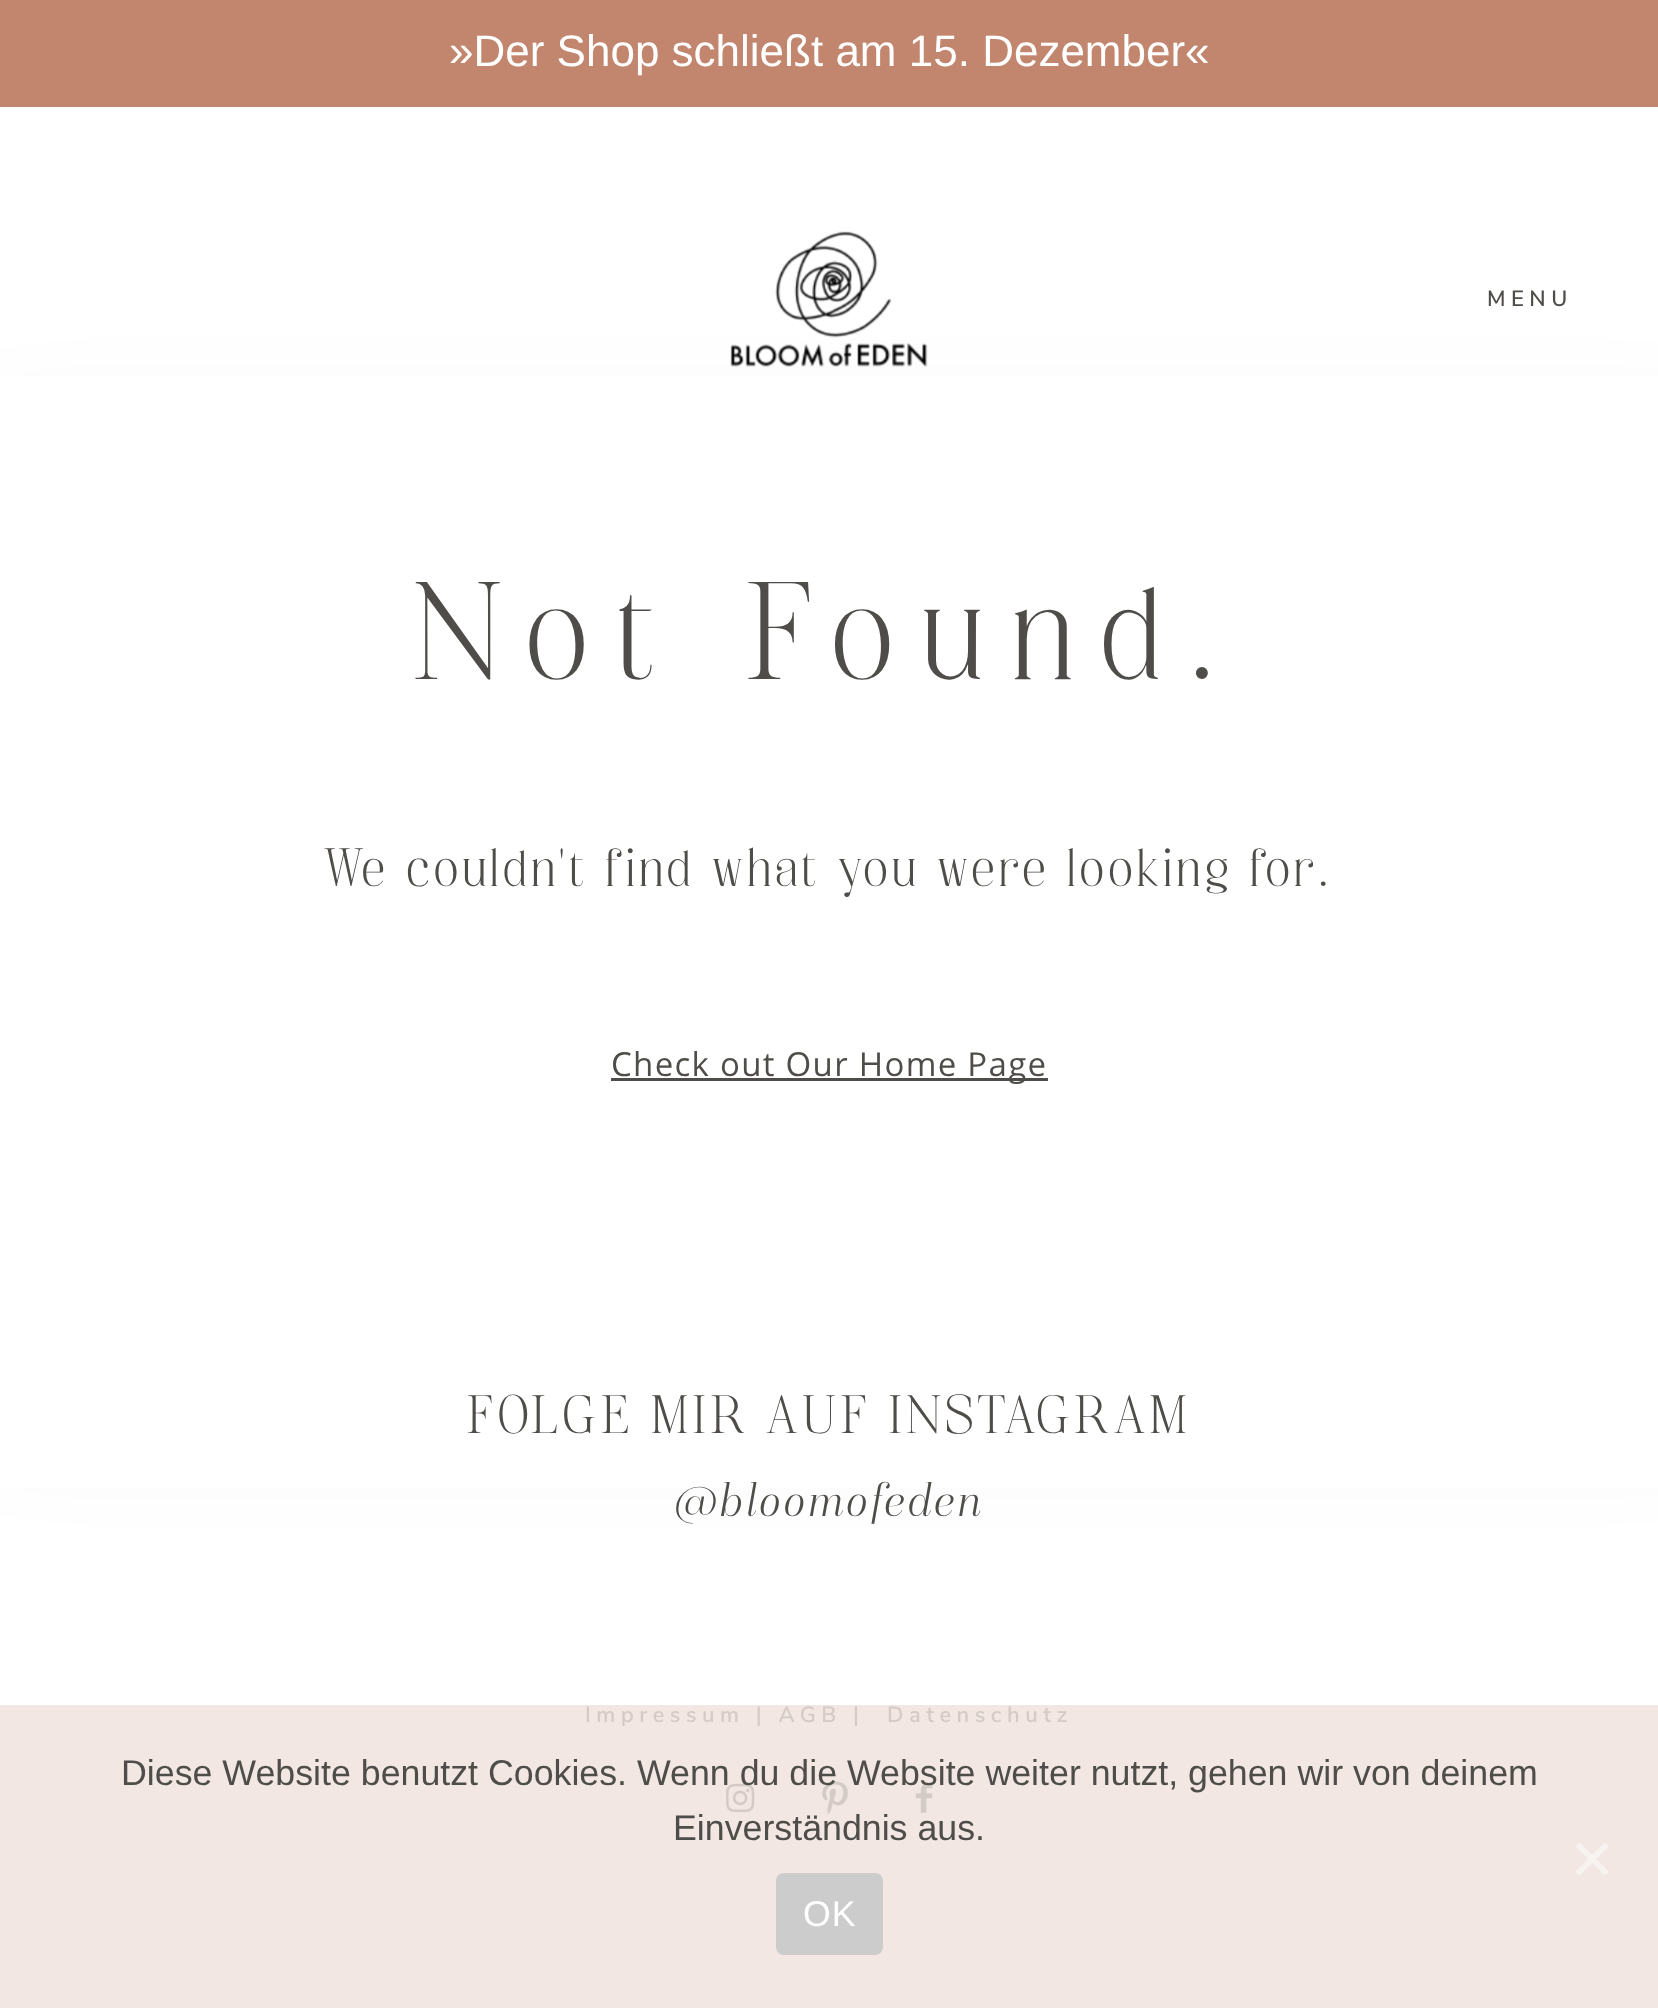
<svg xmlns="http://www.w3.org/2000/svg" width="1658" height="2008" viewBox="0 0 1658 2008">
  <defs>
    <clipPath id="clip1"><path d="M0 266H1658V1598H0ZM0 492H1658V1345H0Z" clip-rule="evenodd"/></clipPath>
  </defs>
  <rect width="100%" height="100%" fill="rgb(255,255,255)"/>
  <rect x="0" y="1705" width="1658" height="303" fill="rgb(242,231,227)"/>
  <rect x="0" y="0" width="1658" height="107" fill="rgb(194,133,109)"/>
  <text x="449" y="66" font-family="Liberation Sans" font-size="44" fill="rgb(255,255,255)">»Der Shop schließt am 15. Dezember«</text>
  <g clip-path="url(#clip1)">
    <rect x="-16" y="470" width="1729" height="924" fill="rgba(0,0,0,0.12)" filter="blur(67.5px)"/>
  </g>
  <rect x="0" y="377" width="1658" height="115" fill="rgb(255,255,255)"/>
  <image x="730" y="231" width="198" height="136" href="pic1.png"/>
  <text x="1487" y="306" font-family="Nunito Sans" font-size="22" font-weight="600" letter-spacing="5.5" fill="rgb(79,77,73)">MENU</text>
  <text x="414" y="679" font-family="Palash" font-size="99" letter-spacing="31.25" fill="rgb(79,77,73)">Not Found.</text>
  <text x="324" y="886" font-family="Palash" font-size="38.5" letter-spacing="5.45" fill="rgb(79,77,73)">We couldn't find what you were looking for.</text>
  <rect x="611" y="1078" width="437" height="3" fill="rgb(79,77,73)"/>
  <text x="611" y="1076" font-family="Open Sans" font-size="33" letter-spacing="1.3" fill="rgb(79,77,73)">Check out Our Home Page</text>
  <rect x="0" y="1345" width="1658" height="142" fill="rgb(255,255,255)"/>
  <text x="467" y="1433" font-family="Palash" font-size="38.5" letter-spacing="5.45" fill="rgb(79,77,73)">FOLGE MIR AUF INSTAGRAM</text>
  <text x="675" y="1516" font-family="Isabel" font-size="46.75" font-weight="100" letter-spacing="1.6" fill="rgb(79,77,73)">@bloomofeden</text>
  <g font-family="Nunito Sans" font-size="22" font-weight="600" letter-spacing="5.5" fill="rgb(213,203,198)">
    <text x="585" y="1722">Impressum | AGB |</text>
    <text x="887" y="1722">Datenschutz</text>
  </g>
  <image x="726" y="1783" width="29" height="30" href="pic2.png"/>
  <image x="822" y="1781" width="26" height="34" href="pic3.png"/>
  <image x="915" y="1783" width="18" height="30" href="pic4.png"/>
  <g font-family="Liberation Sans" font-size="35.75" fill="rgb(79,77,73)">
    <text x="121" y="1785">Diese Website benutzt Cookies. Wenn du die Website weiter nutzt, gehen wir von deinem</text>
    <text x="673" y="1840">Einverständnis aus.</text>
  </g>
  <path d="M1605 1842.5L1609 1846.5L1579.5 1875.5L1575.5 1871.5Z" fill="rgb(248,243,241)"/>
  <path d="M1575.5 1846.5L1579.5 1842.5L1609 1871.5L1605 1875.5Z" fill="rgb(248,243,241)"/>
  <rect x="776" y="1873" width="107" height="82" rx="8" fill="rgb(204,204,204)"/>
  <text x="803" y="1926" font-family="Liberation Sans" font-size="35.75" letter-spacing="1" fill="rgb(255,255,255)">OK</text>
</svg>
